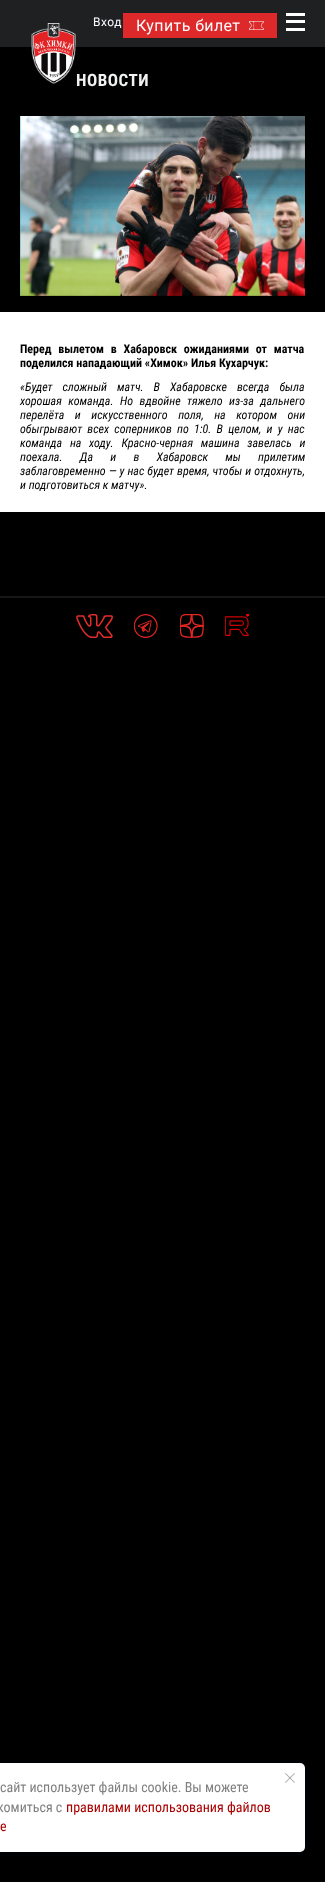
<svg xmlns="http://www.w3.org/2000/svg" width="325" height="1882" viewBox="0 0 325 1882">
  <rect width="100%" height="100%" fill="rgb(0,0,0)"/>
  <rect x="0" y="0" width="325" height="47" fill="rgb(30,32,33)"/>
  <image x="31" y="23" width="45" height="61" href="pic1.png"/>
  <text x="93" y="26" font-family="Roboto" font-size="12" letter-spacing="0.5" fill="rgb(251,251,255)">Вход</text>
  <rect x="123" y="13" width="154" height="25" fill="rgb(221,41,41)"/>
  <text x="136" y="31" font-family="Roboto" font-size="16" letter-spacing="0.4" fill="rgb(251,251,255)">Купить билет</text>
  <image x="249" y="21" width="15" height="9" href="pic2.png"/>
  <rect x="286" y="13" width="19" height="3" fill="rgb(255,255,255)"/>
  <rect x="286" y="28" width="19" height="3" fill="rgb(255,255,255)"/>
  <rect x="286" y="20" width="19" height="3" fill="rgb(255,255,255)"/>
  <text x="76" y="86" font-family="Roboto Condensed" font-size="17" font-weight="bold" letter-spacing="0.5" fill="rgb(241,242,242)">НОВОСТИ</text>
  <image x="20" y="116" width="285" height="180" href="pic3.png"/>
  <rect x="0" y="312" width="325" height="200" fill="rgb(255,255,255)"/>
  <g font-family="Roboto Condensed" font-size="12" font-weight="bold" fill="rgb(0,0,0)">
    <text>
      <tspan x="20" y="353" word-spacing="4">Перед вылетом в Хабаровск ожиданиями от матча</tspan>
      <tspan x="20" y="367">поделился нападающий «Химок» Илья Кухарчук:</tspan>
    </text>
  </g>
  <g font-family="Roboto Condensed" font-size="12" font-style="italic" fill="rgb(0,0,0)">
    <text>
      <tspan x="20" y="391" word-spacing="7.25">«Будет сложный матч. В Хабаровске всегда была</tspan>
      <tspan x="20" y="405" word-spacing="3.75">хорошая команда. Но вдвойне тяжело из-за дальнего</tspan>
      <tspan x="20" y="419" word-spacing="7.75">перелёта и искусственного поля, на котором они</tspan>
      <tspan x="20" y="433" word-spacing="2.5">обыгрывают всех соперников по 1:0. В целом, и у нас</tspan>
      <tspan x="20" y="447" word-spacing="5">команда на ходу. Красно-черная машина завелась и</tspan>
      <tspan x="20" y="461" word-spacing="14.5">поехала. Да и в Хабаровск мы прилетим</tspan>
      <tspan x="20" y="475" word-spacing="0.25">заблаговременно — у нас будет время, чтобы и отдохнуть,</tspan>
      <tspan x="20" y="489">и подготовиться к матчу».</tspan>
    </text>
  </g>
  <rect x="0" y="596" width="325" height="2" fill="rgb(21,23,24)"/>
  <image x="76" y="614" width="37" height="24" href="pic4.png"/>
  <image x="134" y="614" width="24" height="24" href="pic5.png"/>
  <image x="180" y="614" width="24" height="24" href="pic6.png"/>
  <image x="225" y="614" width="24" height="22" href="pic7.png"/>
  <rect x="-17" y="1763" width="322" height="89" rx="5" fill="rgba(0,11,48,0.25)" filter="blur(4px)"/>
  <rect x="-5" y="1763" width="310" height="89" rx="5" fill="rgb(255,255,255)"/>
  <image x="285" y="1773" width="10" height="10" href="pic8.png"/>
  <g font-family="Roboto Condensed" font-size="14" fill="rgb(128,128,128)">
    <text x="0" y="1792">сайт использует файлы cookie. Вы можете</text>
    <text x="-3" y="1812">комиться с</text>
  </g>
  <g font-family="Roboto Condensed" font-size="14" fill="rgb(170,0,0)">
    <text x="66" y="1812">правилами использования файлов</text>
    <text x="0" y="1831">e</text>
  </g>
</svg>
